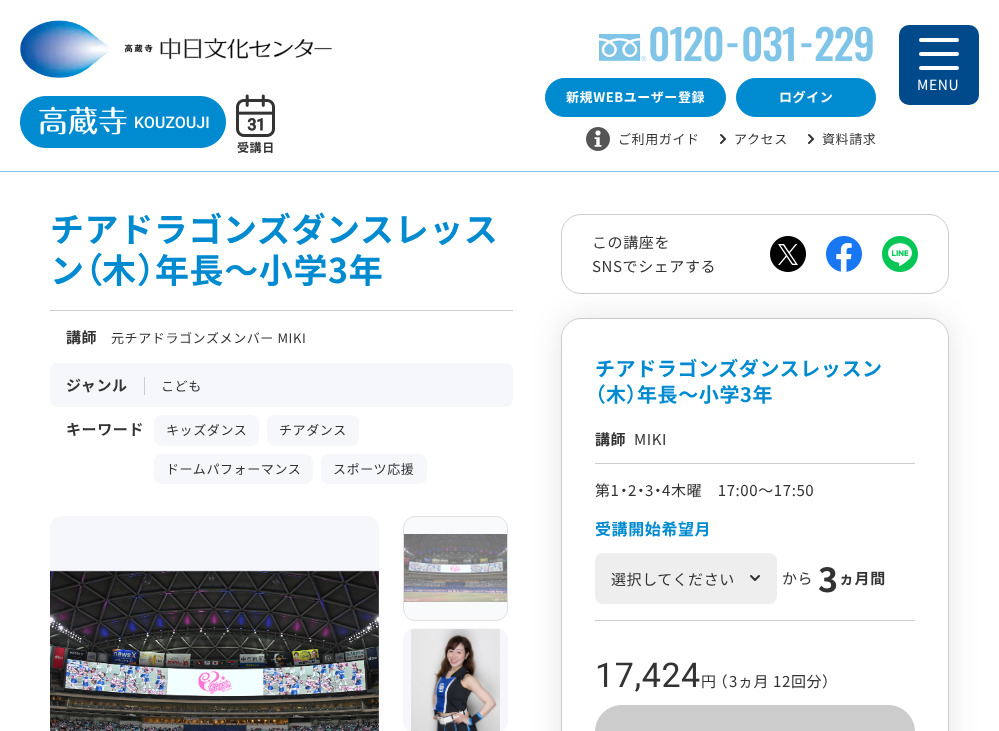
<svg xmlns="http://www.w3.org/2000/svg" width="999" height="731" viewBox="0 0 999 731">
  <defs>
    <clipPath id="clip1"><path d="M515 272H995V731H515ZM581 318H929C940 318 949 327 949 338V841C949 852 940 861 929 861H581C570 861 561 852 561 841V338C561 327 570 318 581 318Z" clip-rule="evenodd"/></clipPath>
  </defs>
  <rect width="100%" height="100%" fill="rgb(255,255,255)"/>
  <rect x="0" y="171" width="999" height="1" fill="rgb(128,197,232)"/>
  <rect x="899" y="25" width="80" height="80" rx="10" fill="rgb(0,73,138)"/>
  <rect x="919" y="38" width="40" height="4" rx="2" fill="rgb(255,255,255)"/>
  <rect x="919" y="52" width="40" height="4" rx="2" fill="rgb(255,255,255)"/>
  <rect x="919" y="66" width="40" height="4" rx="2" fill="rgb(255,255,255)"/>
  <text x="917" y="90" font-family="Noto Sans JP" font-size="14" letter-spacing="0.6" fill="rgb(255,255,255)">MENU</text>
  <image x="599" y="26" width="274" height="36" href="pic1.png"/>
  <rect x="545.5" y="78.5" width="180" height="38" rx="19" fill="rgb(0,139,209)" stroke="rgb(0,139,209)"/>
  <text x="566" y="102" font-family="Noto Sans JP" font-size="13" font-weight="bold" letter-spacing="0.6" fill="rgb(255,255,255)">新規WEBユーザー登録</text>
  <rect x="736.5" y="78.5" width="139" height="38" rx="19" fill="rgb(0,139,209)" stroke="rgb(0,139,209)"/>
  <text x="779" y="102" font-family="Noto Sans JP" font-size="13" font-weight="bold" letter-spacing="0.6" fill="rgb(255,255,255)">ログイン</text>
  <image x="586" y="127" width="24" height="24" href="pic2.png"/>
  <text x="618" y="144" font-family="Noto Sans JP" font-size="13" letter-spacing="0.6" fill="rgb(51,51,51)">ご利用ガイド</text>
  <path d="M721 135L725 139M721 143L725 139" fill="none" stroke="rgb(51,51,51)" stroke-width="2" stroke-linecap="round"/>
  <text x="734" y="144" font-family="Noto Sans JP" font-size="13" letter-spacing="0.6" fill="rgb(51,51,51)">アクセス</text>
  <path d="M809 135L813 139M809 143L813 139" fill="none" stroke="rgb(51,51,51)" stroke-width="2" stroke-linecap="round"/>
  <text x="822" y="144" font-family="Noto Sans JP" font-size="13" letter-spacing="0.6" fill="rgb(51,51,51)">資料請求</text>
  <image x="20" y="20" width="312" height="58" href="pic3.png"/>
  <image x="20" y="96" width="206" height="52" href="pic4.png"/>
  <image x="236" y="94" width="39" height="43" href="pic5.png"/>
  <text x="237" y="152" font-family="Noto Sans JP" font-size="12" font-weight="bold" letter-spacing="0.6" fill="rgb(51,51,51)">受講日</text>
  <rect x="50" y="310" width="463" height="1" fill="rgb(204,204,204)"/>
  <g font-family="Noto Sans JP" font-size="34" font-weight="bold" letter-spacing="0.6" fill="rgb(0,139,209)">
    <text>
      <tspan x="50" y="242">チアドラゴンズダンスレッス</tspan>
      <tspan x="50" y="283">ン</tspan>
    </text>
  </g>
  <text x="85" y="283" font-family="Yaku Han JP" font-size="34" font-weight="bold" letter-spacing="0.6" fill="rgb(0,139,209)">（</text>
  <text x="102" y="283" font-family="Noto Sans JP" font-size="34" font-weight="bold" letter-spacing="0.6" fill="rgb(0,139,209)">木</text>
  <text x="137" y="283" font-family="Yaku Han JP" font-size="34" font-weight="bold" letter-spacing="0.6" fill="rgb(0,139,209)">）</text>
  <text x="155" y="283" font-family="Noto Sans JP" font-size="34" font-weight="bold" letter-spacing="0.6" fill="rgb(0,139,209)">年長～小学3年</text>
  <text x="66" y="343" font-family="Noto Sans JP" font-size="15" font-weight="bold" letter-spacing="0.6" fill="rgb(51,51,51)">講師</text>
  <text x="111" y="343" font-family="Noto Sans JP" font-size="13" letter-spacing="0.6" fill="rgb(51,51,51)">元チアドラゴンズメンバー MIKI</text>
  <rect x="50" y="363" width="463" height="44" rx="8" fill="rgb(245,247,250)"/>
  <text x="66" y="391" font-family="Noto Sans JP" font-size="15" font-weight="bold" letter-spacing="0.6" fill="rgb(51,51,51)">ジャンル</text>
  <rect x="144" y="377" width="1" height="18" fill="rgb(204,204,204)"/>
  <text x="161" y="391" font-family="Noto Sans JP" font-size="13" letter-spacing="0.6" fill="rgb(51,51,51)">こども</text>
  <text x="66" y="435" font-family="Noto Sans JP" font-size="15" font-weight="bold" letter-spacing="0.6" fill="rgb(51,51,51)">キーワード</text>
  <rect x="154" y="415" width="105" height="31" rx="8" fill="rgb(245,247,250)"/>
  <text x="166" y="435" font-family="Noto Sans JP" font-size="13" letter-spacing="0.6" fill="rgb(51,51,51)">キッズダンス</text>
  <rect x="267" y="415" width="92" height="31" rx="8" fill="rgb(245,247,250)"/>
  <text x="279" y="435" font-family="Noto Sans JP" font-size="13" letter-spacing="0.6" fill="rgb(51,51,51)">チアダンス</text>
  <rect x="154" y="454" width="159" height="30" rx="8" fill="rgb(245,247,250)"/>
  <text x="166" y="474" font-family="Noto Sans JP" font-size="13" letter-spacing="0.6" fill="rgb(51,51,51)">ドームパフォーマンス</text>
  <rect x="321" y="454" width="106" height="30" rx="8" fill="rgb(245,247,250)"/>
  <text x="333" y="474" font-family="Noto Sans JP" font-size="13" letter-spacing="0.6" fill="rgb(51,51,51)">スポーツ応援</text>
  <rect x="50" y="516" width="329" height="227" rx="12" fill="rgb(245,247,250)"/>
  <image x="50" y="570" width="329" height="161" href="pic6.png"/>
  <rect x="403.5" y="516.5" width="104" height="104" rx="11.5" fill="rgb(249,250,252)" stroke="rgb(224,224,224)"/>
  <image x="404" y="534" width="103" height="68" href="pic7.png"/>
  <rect x="403" y="628" width="105" height="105" rx="12" fill="rgb(245,247,250)"/>
  <image x="411" y="629" width="89" height="102" href="pic8.png"/>
  <rect x="561.5" y="214.5" width="387" height="79" rx="19.5" fill="none" stroke="rgb(204,204,204)"/>
  <g font-family="Noto Sans JP" font-size="15" letter-spacing="0.6" fill="rgb(51,51,51)">
    <text>
      <tspan x="592" y="248">この講座を</tspan>
      <tspan x="592" y="272">SNSでシェアする</tspan>
    </text>
  </g>
  <image x="770" y="236" width="36" height="36" href="pic9.png"/>
  <image x="826" y="236" width="36" height="36" href="pic10.png"/>
  <image x="882" y="236" width="36" height="36" href="pic11.png"/>
  <g clip-path="url(#clip1)">
    <rect x="561" y="318" width="388" height="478" rx="20" fill="rgba(0,0,0,0.1)" filter="blur(15px)"/>
  </g>
  <rect x="561.5" y="318.5" width="387" height="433" rx="19.5" fill="none" stroke="rgb(204,204,204)"/>
  <text x="595" y="376" font-family="Noto Sans JP" font-size="20" font-weight="bold" letter-spacing="0.6" fill="rgb(0,139,209)">チアドラゴンズダンスレッスン</text>
  <text x="595" y="402" font-family="Yaku Han JP" font-size="20" font-weight="bold" letter-spacing="0.6" fill="rgb(0,139,209)">（</text>
  <text x="606" y="402" font-family="Noto Sans JP" font-size="20" font-weight="bold" letter-spacing="0.6" fill="rgb(0,139,209)">木</text>
  <text x="626" y="402" font-family="Yaku Han JP" font-size="20" font-weight="bold" letter-spacing="0.6" fill="rgb(0,139,209)">）</text>
  <text x="637" y="402" font-family="Noto Sans JP" font-size="20" font-weight="bold" letter-spacing="0.6" fill="rgb(0,139,209)">年長～小学3年</text>
  <text x="595" y="445" font-family="Noto Sans JP" font-size="15" font-weight="bold" letter-spacing="0.6" fill="rgb(51,51,51)">講師</text>
  <text x="634" y="445" font-family="Noto Sans JP" font-size="15" letter-spacing="0.6" fill="rgb(51,51,51)">MIKI</text>
  <rect x="595" y="463" width="320" height="1" fill="rgb(204,204,204)"/>
  <text x="595" y="496" font-family="Noto Sans JP" font-size="15" letter-spacing="0.6" fill="rgb(51,51,51)">第1</text>
  <text x="620" y="496" font-family="Yaku Han JP" font-size="15" letter-spacing="0.6" fill="rgb(51,51,51)">・</text>
  <text x="628" y="496" font-family="Noto Sans JP" font-size="15" letter-spacing="0.6" fill="rgb(51,51,51)">2</text>
  <text x="637" y="496" font-family="Yaku Han JP" font-size="15" letter-spacing="0.6" fill="rgb(51,51,51)">・</text>
  <text x="645" y="496" font-family="Noto Sans JP" font-size="15" letter-spacing="0.6" fill="rgb(51,51,51)">3</text>
  <text x="654" y="496" font-family="Yaku Han JP" font-size="15" letter-spacing="0.6" fill="rgb(51,51,51)">・</text>
  <text x="662" y="496" font-family="Noto Sans JP" font-size="15" letter-spacing="0.6" fill="rgb(51,51,51)">4木曜　17:00～17:50</text>
  <text x="595" y="535" font-family="Noto Sans JP" font-size="16" font-weight="bold" letter-spacing="0.6" fill="rgb(0,139,209)">受講開始希望月</text>
  <rect x="595" y="553" width="182" height="51" rx="8" fill="rgb(238,238,238)"/>
  <path d="M759 576L755 580M751 576L755 580" fill="none" stroke="rgb(51,51,51)" stroke-width="2" stroke-linecap="round"/>
  <g font-family="Noto Sans JP" font-size="15" letter-spacing="0.6" fill="rgb(51,51,51)">
    <text x="611" y="585">選択してください</text>
    <text x="782" y="584">から</text>
  </g>
  <text x="818" y="592" font-family="Noto Sans JP" font-size="34" font-weight="bold" letter-spacing="0.6" fill="rgb(51,51,51)">3</text>
  <text x="839" y="584" font-family="Noto Sans JP" font-size="15" font-weight="bold" letter-spacing="0.6" fill="rgb(51,51,51)">ヵ月間</text>
  <rect x="595" y="620" width="320" height="1" fill="rgb(204,204,204)"/>
  <text x="595" y="687" font-family="Roboto" font-size="34" letter-spacing="0.6" fill="rgb(51,51,51)">17,424</text>
  <text x="701" y="687" font-family="Noto Sans JP" font-size="15" letter-spacing="0.6" fill="rgb(51,51,51)">円</text>
  <text x="720" y="687" font-family="Yaku Han JP" font-size="15" letter-spacing="0.6" fill="rgb(51,51,51)">（</text>
  <text x="729" y="687" font-family="Noto Sans JP" font-size="15" letter-spacing="0.6" fill="rgb(51,51,51)">3ヵ月 12回分</text>
  <text x="822" y="687" font-family="Yaku Han JP" font-size="15" letter-spacing="0.6" fill="rgb(51,51,51)">）</text>
  <rect x="595.5" y="705.5" width="319" height="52" rx="26" fill="rgb(204,204,204)" stroke="rgb(204,204,204)"/>
</svg>
